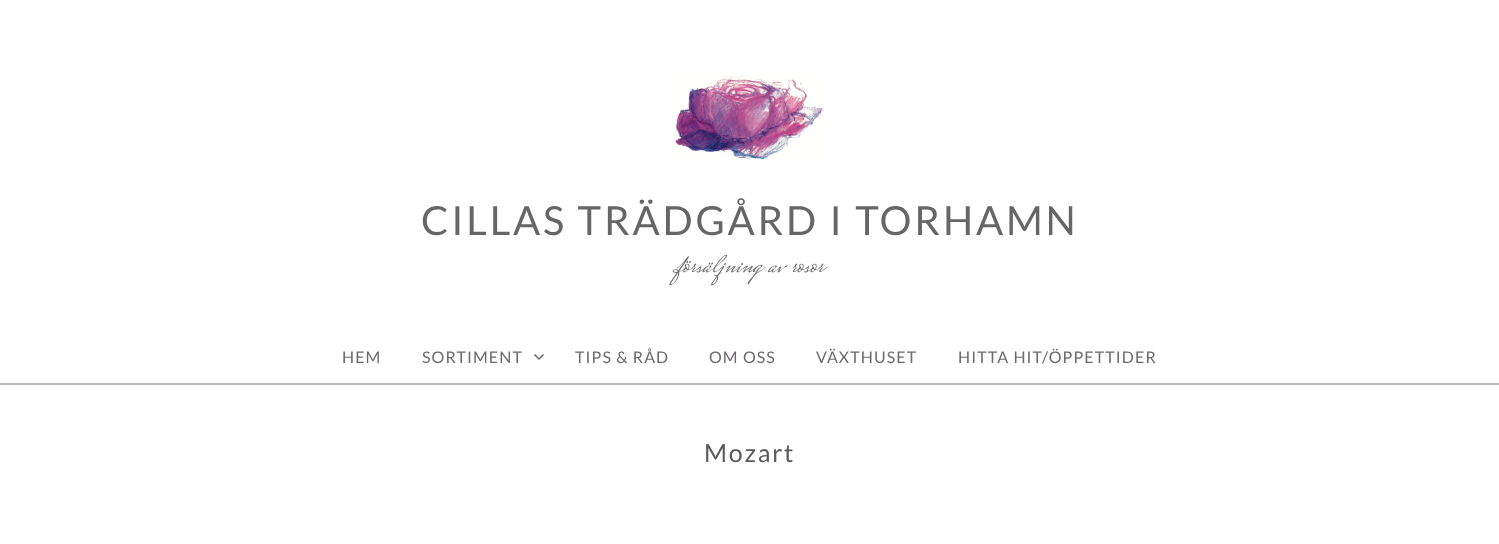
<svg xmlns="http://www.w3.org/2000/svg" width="1499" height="544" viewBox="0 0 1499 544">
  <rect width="100%" height="100%" fill="rgb(255,255,255)"/>
  <image x="675" y="76" width="149" height="84" href="pic1.png"/>
  <text x="421" y="235" font-family="Lato" font-size="40" letter-spacing="2.8" fill="rgb(102,102,102)">CILLAS TRÄDGÅRD I TORHAMN</text>
  <text x="675" y="272" font-family="Mrs Saint Delafield" font-size="30" fill="rgb(109,104,108)">försäljning av rosor</text>
  <rect x="0" y="383" width="1499" height="2" fill="rgb(186,184,185)"/>
  <g font-family="Lato" font-size="16" letter-spacing="1.1" fill="rgb(109,104,108)">
    <text x="342" y="363">HEM</text>
    <text x="422" y="363">SORTIMENT</text>
  </g>
  <image x="534" y="354" width="10" height="6" href="pic2.png"/>
  <g font-family="Lato" font-size="16" letter-spacing="1.1" fill="rgb(109,104,108)">
    <text x="575" y="363">TIPS &amp; RÅD</text>
    <text x="709" y="363">OM OSS</text>
    <text x="816" y="363">VÄXTHUSET</text>
    <text x="958" y="363">HITTA HIT/ÖPPETTIDER</text>
  </g>
  <text x="704" y="462" font-family="Lato" font-size="25" letter-spacing="1.75" fill="rgb(91,90,90)">Mozart</text>
</svg>
